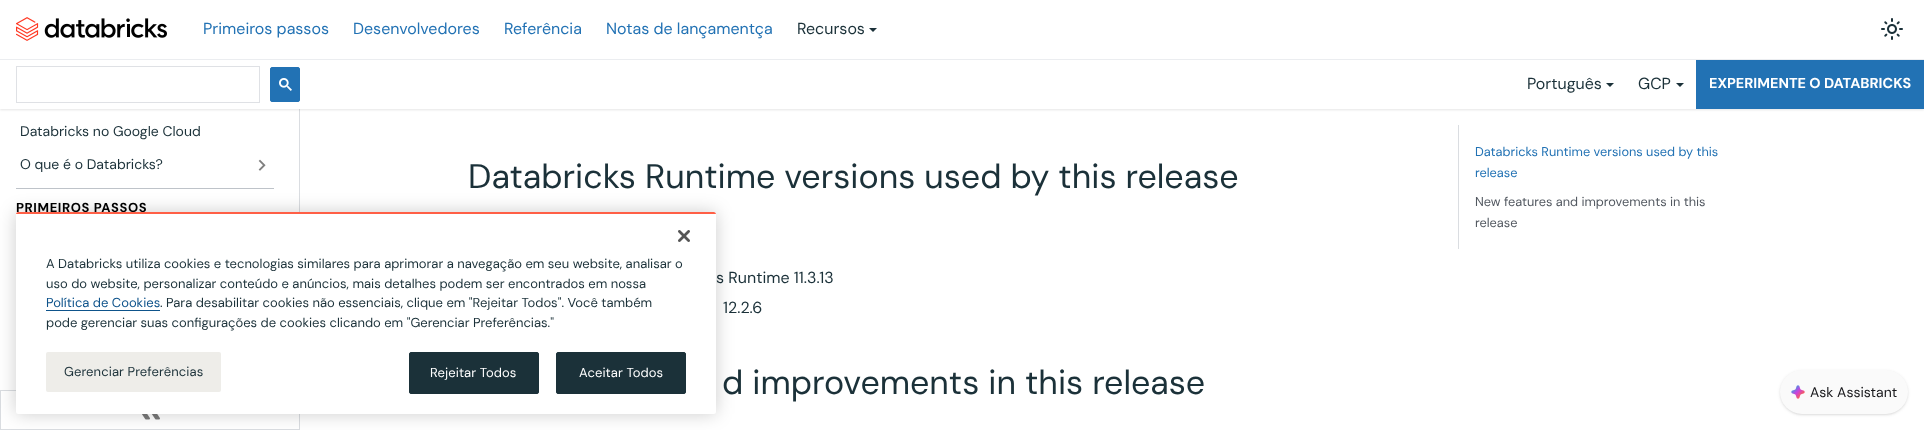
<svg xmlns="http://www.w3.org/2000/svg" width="1924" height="430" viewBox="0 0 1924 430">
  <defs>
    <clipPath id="clip1"><rect x="16" y="212" width="700" height="202" rx="2.5"/></clipPath>
  </defs>
  <rect width="100%" height="100%" fill="rgb(255,255,255)"/>
  <rect x="299" y="109" width="1" height="103" fill="rgb(218,221,225)"/>
  <rect x="0" y="1" width="1924" height="109" fill="rgba(0,0,0,0.1)" filter="blur(1px)"/>
  <rect x="0" y="0" width="1924" height="109" fill="rgb(255,255,255)"/>
  <rect x="0" y="59" width="1924" height="1" fill="rgb(235,237,240)"/>
  <image x="16" y="17" width="151" height="24" href="pic1.png"/>
  <g font-family="DM Sans" font-size="16" fill="rgb(34,114,180)">
    <text x="203" y="34">Primeiros passos</text>
    <text x="353" y="34">Desenvolvedores</text>
    <text x="504" y="34">Referência</text>
    <text x="606" y="34">Notas de lançamentça</text>
  </g>
  <text x="797" y="34" font-family="DM Sans" font-size="16" fill="rgb(27,49,57)">Recursos</text>
  <path d="M869 28H877L873 32Z" fill="rgb(27,49,57)"/>
  <image x="1881" y="18" width="22" height="22" href="pic2.png"/>
  <rect x="16.5" y="66.5" width="243" height="36" fill="none" stroke="rgb(223,225,229)"/>
  <rect x="270.5" y="67.5" width="29" height="34" rx="1.5" fill="rgb(34,114,180)" stroke="rgb(34,114,180)"/>
  <image x="279" y="78" width="13" height="13" href="pic3.png"/>
  <text x="1527" y="89" font-family="DM Sans" font-size="16" fill="rgb(27,49,57)">Português</text>
  <path d="M1606 83H1614L1610 87Z" fill="rgb(27,49,57)"/>
  <text x="1638" y="89" font-family="DM Sans" font-size="16" fill="rgb(27,49,57)">GCP</text>
  <path d="M1676 83H1684L1680 87Z" fill="rgb(27,49,57)"/>
  <rect x="1696" y="60" width="228" height="49" fill="rgb(34,114,180)"/>
  <text x="1709" y="88" font-family="DM Sans" font-size="14.4" font-weight="bold" fill="rgb(255,255,255)">EXPERIMENTE O DATABRICKS</text>
  <g font-family="DM Sans" font-size="14" fill="rgb(27,49,57)">
    <text x="20" y="136">Databricks no Google Cloud</text>
    <text x="20" y="169">O que é o Databricks?</text>
  </g>
  <image x="258" y="159" width="8" height="12" href="pic4.png"/>
  <rect x="16" y="188" width="258" height="1" fill="rgb(190,195,201)"/>
  <text x="16" y="212" font-family="DM Sans" font-size="13" font-weight="bold" letter-spacing="0.6" fill="rgb(0,0,0)">PRIMEIROS PASSOS</text>
  <rect x="0.5" y="390.5" width="299" height="39" fill="none" stroke="rgb(218,221,225)"/>
  <image x="142" y="414" width="18" height="6" href="pic5.png"/>
  <text x="468" y="188" font-family="DM Sans" font-size="34" fill="rgb(27,49,57)">Databricks Runtime versions used by this release</text>
  <g font-family="DM Sans" font-size="16" fill="rgb(27,49,57)">
    <text x="716" y="283">s Runtime 11.3.13</text>
    <text x="723" y="313">12.2.6</text>
  </g>
  <text x="722" y="394" font-family="DM Sans" font-size="34" fill="rgb(27,49,57)">d improvements in this release</text>
  <rect x="1458" y="125" width="1" height="124" fill="rgb(218,221,225)"/>
  <g font-family="DM Sans" font-size="12.75" fill="rgb(34,114,180)">
    <text>
      <tspan x="1475" y="156">Databricks Runtime versions used by this</tspan>
      <tspan x="1475" y="177">release</tspan>
    </text>
  </g>
  <g font-family="DM Sans" font-size="12.75" fill="rgb(82,88,96)">
    <text>
      <tspan x="1475" y="206">New features and improvements in this</tspan>
      <tspan x="1475" y="227">release</tspan>
    </text>
  </g>
  <rect x="1781" y="372" width="126" height="42" rx="21" fill="rgba(0,0,0,0.1)" filter="blur(1px)"/>
  <rect x="1780" y="371" width="128" height="44" rx="22" fill="rgba(0,0,0,0.1)" filter="blur(1.5px)"/>
  <rect x="1780" y="370" width="128" height="44" rx="22" fill="rgb(250,250,250)"/>
  <image x="1791" y="385" width="14" height="14" href="pic6.png"/>
  <text x="1810" y="397" font-family="DM Sans" font-size="14" fill="rgb(24,24,27)">Ask Assistant</text>
  <rect x="16" y="212" width="700" height="202" rx="2.5" fill="rgba(0,0,0,0.2)" filter="blur(9px)"/>
  <rect x="16" y="212" width="700" height="202" rx="2.5" fill="rgb(255,255,255)"/>
  <g clip-path="url(#clip1)">
    <rect x="16" y="212" width="700" height="2" fill="rgb(255,95,70)"/>
  </g>
  <image x="678" y="230" width="12" height="12" href="pic7.png"/>
  <g font-family="DM Sans" font-size="13" fill="rgb(27,49,57)">
    <text>
      <tspan x="46" y="268">A Databricks utiliza cookies e tecnologias similares para aprimorar a navegação em seu website, analisar o</tspan>
      <tspan x="46" y="288">uso do website, personalizar conteúdo e anúncios, mais detalhes podem ser encontrados em nossa</tspan>
    </text>
  </g>
  <text x="46" y="307" font-family="DM Sans" font-size="13" fill="rgb(14,83,139)">Política de Cookies</text>
  <rect x="46" y="310" width="114" height="1" fill="rgb(14,83,139)"/>
  <g font-family="DM Sans" font-size="13" fill="rgb(27,49,57)">
    <text x="160" y="307">. Para desabilitar cookies não essenciais, clique em "Rejeitar Todos". Você também</text>
    <text x="46" y="327">pode gerenciar suas configurações de cookies clicando em "Gerenciar Preferências."</text>
  </g>
  <rect x="46" y="352" width="175" height="40" rx="2" fill="rgb(238,237,233)"/>
  <text x="64" y="376" font-family="DM Sans" font-size="13" letter-spacing="0.1" fill="rgb(27,49,57)">Gerenciar Preferências</text>
  <rect x="409.5" y="352.5" width="129" height="41" rx="1.5" fill="rgb(27,49,57)" stroke="rgb(27,49,57)"/>
  <text x="430" y="377" font-family="DM Sans" font-size="13" letter-spacing="0.1" fill="rgb(255,255,255)">Rejeitar Todos</text>
  <rect x="556.5" y="352.5" width="129" height="41" rx="1.5" fill="rgb(27,49,57)" stroke="rgb(27,49,57)"/>
  <text x="579" y="377" font-family="DM Sans" font-size="13" letter-spacing="0.1" fill="rgb(255,255,255)">Aceitar Todos</text>
</svg>
